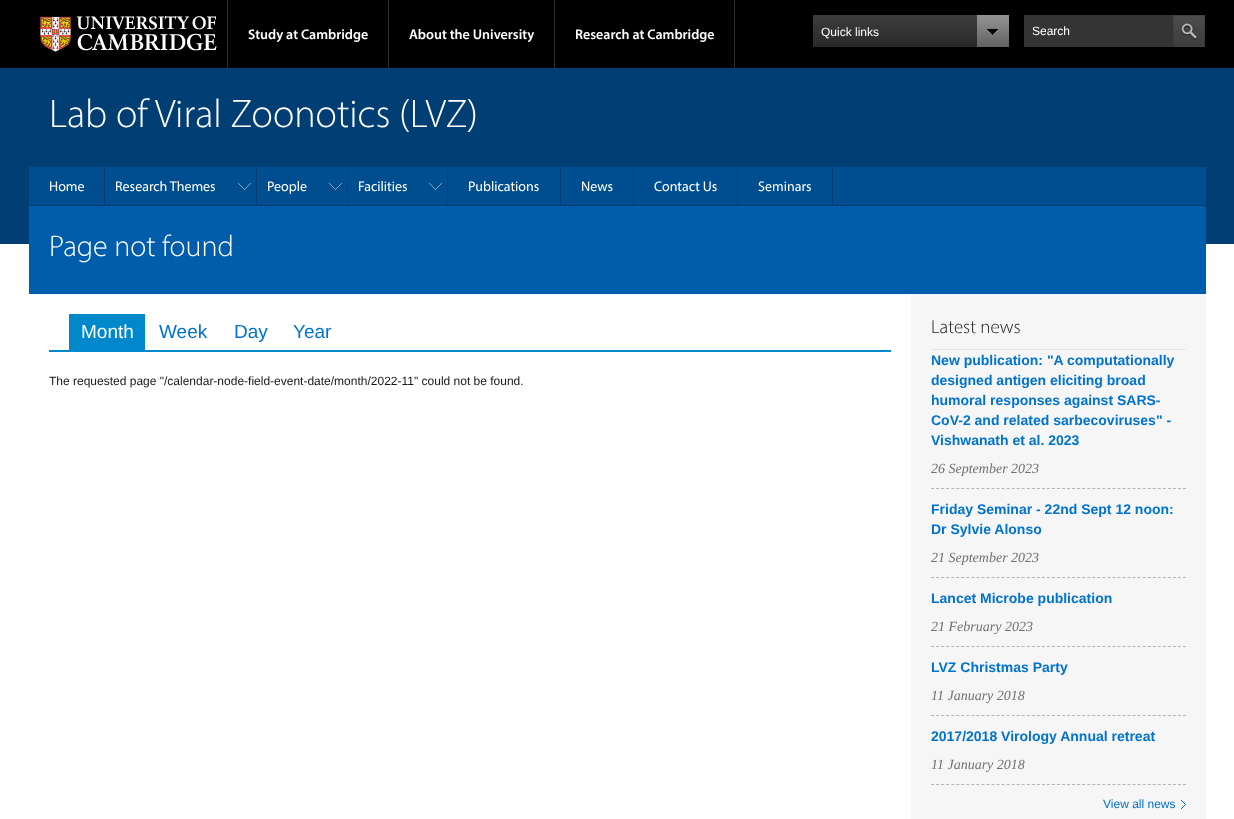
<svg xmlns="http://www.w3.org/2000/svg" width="1234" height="819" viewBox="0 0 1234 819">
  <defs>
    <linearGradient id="g1" gradientUnits="userSpaceOnUse" x1="911" y1="15" x2="911" y2="47"><stop offset="0" stop-color="rgb(61,61,61)"/><stop offset="1" stop-color="rgb(41,41,41)"/></linearGradient>
  </defs>
  <rect width="100%" height="100%" fill="rgb(0,0,0)"/>
  <image x="40" y="16" width="177" height="36" href="pic1.png"/>
  <rect x="227" y="0" width="1" height="68" fill="rgb(46,46,46)"/>
  <rect x="388" y="0" width="1" height="68" fill="rgb(46,46,46)"/>
  <text x="248" y="39" font-family="Myriad" font-size="14" font-weight="600" fill="rgb(255,255,255)">Study at Cambridge</text>
  <rect x="554" y="0" width="1" height="68" fill="rgb(46,46,46)"/>
  <text x="409" y="39" font-family="Myriad" font-size="14" font-weight="600" fill="rgb(255,255,255)">About the University</text>
  <rect x="734" y="0" width="1" height="68" fill="rgb(46,46,46)"/>
  <text x="575" y="39" font-family="Myriad" font-size="14" font-weight="600" fill="rgb(255,255,255)">Research at Cambridge</text>
  <rect x="813" y="15" width="164" height="32" fill="url(#g1)"/>
  <text x="821" y="36" font-family="Liberation Sans" font-size="12" fill="rgb(255,255,255)">Quick links</text>
  <image x="977" y="15" width="32" height="32" href="pic2.png"/>
  <rect x="1024" y="15" width="149" height="32" fill="rgb(52,52,52)"/>
  <text x="1032" y="35" font-family="Liberation Sans" font-size="12" fill="rgb(255,255,255)">Search</text>
  <image x="1173" y="15" width="32" height="32" href="pic3.png"/>
  <rect x="0" y="68" width="1234" height="176" fill="rgb(0,62,116)"/>
  <text x="49" y="127" font-family="Myriad" font-size="40" font-weight="300" fill="rgb(255,255,255)">Lab of Viral Zoonotics (LVZ)</text>
  <rect x="833" y="167" width="373" height="38" fill="rgb(0,78,143)"/>
  <rect x="29" y="167" width="75" height="38" fill="rgb(0,78,143)"/>
  <text x="49" y="191" font-family="Myriad" font-size="14" fill="rgb(255,255,255)">Home</text>
  <rect x="105" y="167" width="151" height="38" fill="rgb(0,78,143)"/>
  <image x="238" y="183" width="13" height="7" href="pic4.png"/>
  <text x="115" y="191" font-family="Myriad" font-size="14" fill="rgb(255,255,255)">Research Themes</text>
  <rect x="257" y="167" width="90" height="38" fill="rgb(0,78,143)"/>
  <image x="329" y="183" width="13" height="7" href="pic4.png"/>
  <text x="267" y="191" font-family="Myriad" font-size="14" fill="rgb(255,255,255)">People</text>
  <rect x="348" y="167" width="99" height="38" fill="rgb(0,78,143)"/>
  <image x="429" y="183" width="13" height="7" href="pic4.png"/>
  <text x="358" y="191" font-family="Myriad" font-size="14" fill="rgb(255,255,255)">Facilities</text>
  <rect x="448" y="167" width="112" height="38" fill="rgb(0,78,143)"/>
  <text x="468" y="191" font-family="Myriad" font-size="14" fill="rgb(255,255,255)">Publications</text>
  <rect x="561" y="167" width="72" height="38" fill="rgb(0,78,143)"/>
  <text x="581" y="191" font-family="Myriad" font-size="14" fill="rgb(255,255,255)">News</text>
  <rect x="634" y="167" width="103" height="38" fill="rgb(0,78,143)"/>
  <text x="654" y="191" font-family="Myriad" font-size="14" fill="rgb(255,255,255)">Contact Us</text>
  <rect x="738" y="167" width="94" height="38" fill="rgb(0,78,143)"/>
  <text x="758" y="191" font-family="Myriad" font-size="14" fill="rgb(255,255,255)">Seminars</text>
  <rect x="0" y="244" width="1234" height="575" fill="rgb(255,255,255)"/>
  <rect x="29" y="206" width="1177" height="88" fill="rgb(0,93,171)"/>
  <text x="49" y="256" font-family="Myriad" font-size="30" font-weight="300" fill="rgb(255,255,255)">Page not found</text>
  <rect x="49" y="350" width="842" height="2" fill="rgb(0,136,204)"/>
  <rect x="69" y="314" width="76" height="36" fill="rgb(0,136,204)"/>
  <text x="81" y="338" font-family="Liberation Sans" font-size="19" fill="rgb(255,255,255)">Month</text>
  <g font-family="Liberation Sans" font-size="19" fill="rgb(0,114,207)">
    <text x="159" y="338">Week</text>
    <text x="234" y="338">Day</text>
    <text x="293" y="338">Year</text>
  </g>
  <text x="49" y="385" font-family="Liberation Sans" font-size="12" fill="rgb(23,23,23)">The requested page "/calendar-node-field-event-date/month/2022-11" could not be found.</text>
  <rect x="911" y="294" width="295" height="525" fill="rgb(246,246,246)"/>
  <rect x="931" y="349" width="255" height="1" fill="rgb(228,228,228)"/>
  <text x="931" y="333" font-family="Myriad" font-size="19" font-weight="300" fill="rgb(23,23,23)">Latest news</text>
  <path d="M931 488.5H1186" fill="none" stroke="rgb(181,181,181)" stroke-dasharray="3 2.04"/>
  <g font-family="Liberation Sans" font-size="14" font-weight="bold" fill="rgb(0,114,207)">
    <text>
      <tspan x="931" y="365">New publication: "A computationally</tspan>
      <tspan x="931" y="385">designed antigen eliciting broad</tspan>
      <tspan x="931" y="405">humoral responses against SARS-</tspan>
      <tspan x="931" y="425">CoV-2 and related sarbecoviruses" -</tspan>
      <tspan x="931" y="445">Vishwanath et al. 2023</tspan>
    </text>
  </g>
  <text x="931" y="473" font-family="Liberation Serif" font-size="14" font-style="italic" fill="rgb(113,113,113)">26 September 2023</text>
  <path d="M931 577.5H1186" fill="none" stroke="rgb(181,181,181)" stroke-dasharray="3 2.04"/>
  <g font-family="Liberation Sans" font-size="14" font-weight="bold" fill="rgb(0,114,207)">
    <text>
      <tspan x="931" y="514">Friday Seminar - 22nd Sept 12 noon:</tspan>
      <tspan x="931" y="534">Dr Sylvie Alonso</tspan>
    </text>
  </g>
  <text x="931" y="562" font-family="Liberation Serif" font-size="14" font-style="italic" fill="rgb(113,113,113)">21 September 2023</text>
  <path d="M931 646.5H1186" fill="none" stroke="rgb(181,181,181)" stroke-dasharray="3 2.04"/>
  <text x="931" y="603" font-family="Liberation Sans" font-size="14" font-weight="bold" fill="rgb(0,114,207)">Lancet Microbe publication</text>
  <text x="931" y="631" font-family="Liberation Serif" font-size="14" font-style="italic" fill="rgb(113,113,113)">21 February 2023</text>
  <path d="M931 715.5H1186" fill="none" stroke="rgb(181,181,181)" stroke-dasharray="3 2.04"/>
  <text x="931" y="672" font-family="Liberation Sans" font-size="14" font-weight="bold" fill="rgb(0,114,207)">LVZ Christmas Party</text>
  <text x="931" y="700" font-family="Liberation Serif" font-size="14" font-style="italic" fill="rgb(113,113,113)">11 January 2018</text>
  <path d="M931 784.5H1186" fill="none" stroke="rgb(181,181,181)" stroke-dasharray="3 2.04"/>
  <text x="931" y="741" font-family="Liberation Sans" font-size="14" font-weight="bold" fill="rgb(0,114,207)">2017/2018 Virology Annual retreat</text>
  <text x="931" y="769" font-family="Liberation Serif" font-size="14" font-style="italic" fill="rgb(113,113,113)">11 January 2018</text>
  <image x="1181" y="800" width="5" height="9" href="pic5.png"/>
  <text x="1103" y="808" font-family="Liberation Sans" font-size="12" fill="rgb(0,114,207)">View all news</text>
</svg>
